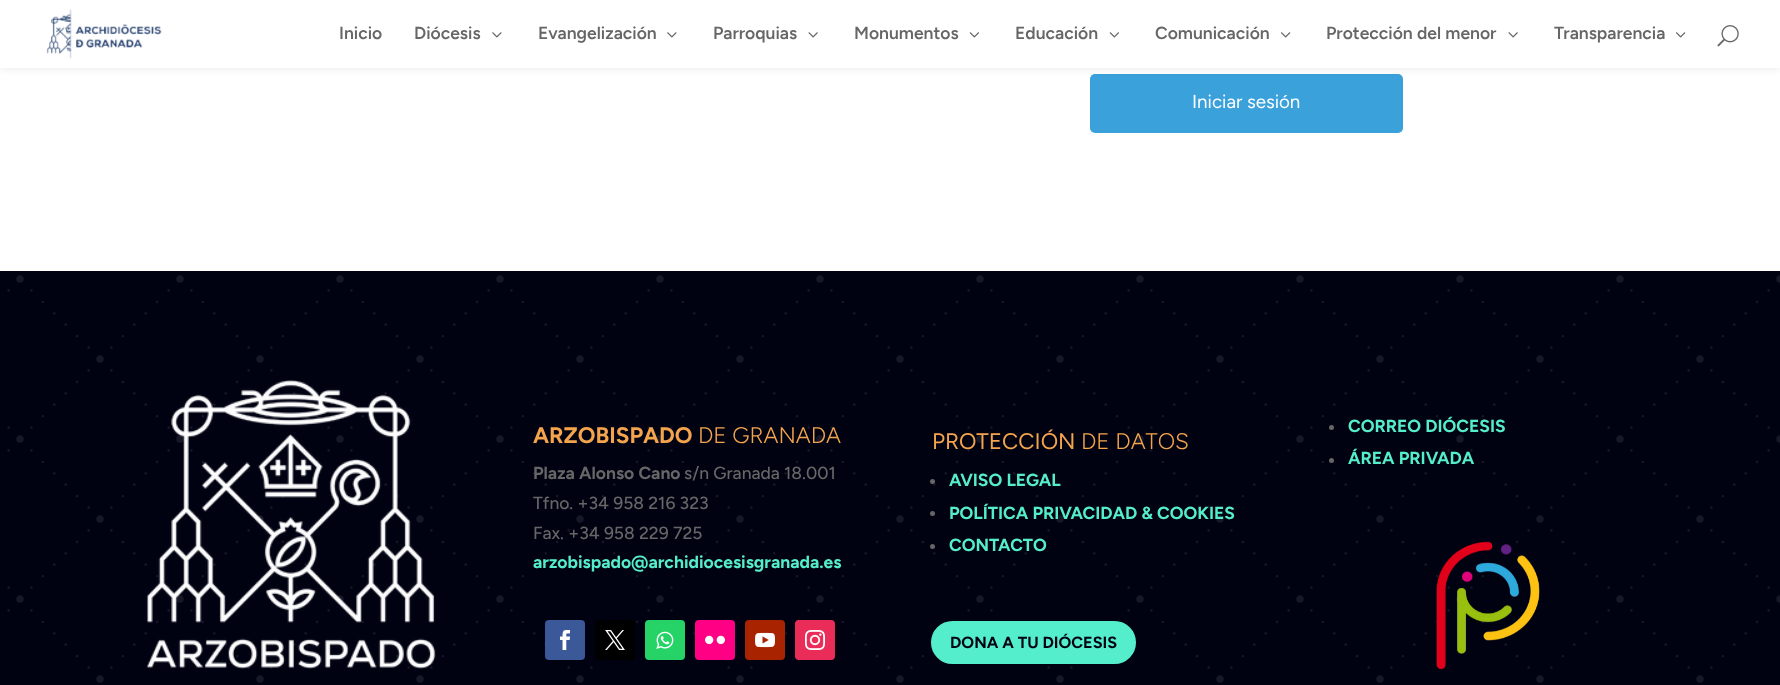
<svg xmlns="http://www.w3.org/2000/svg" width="1780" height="685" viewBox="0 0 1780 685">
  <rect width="100%" height="100%" fill="rgb(255,255,255)"/>
  <rect x="1090" y="74" width="313" height="59" rx="5" fill="rgb(59,161,218)"/>
  <rect x="0" y="0" width="1780" height="68" fill="rgba(0,0,0,0.1)" filter="blur(4.5px)"/>
  <rect x="0" y="0" width="1780" height="68" fill="rgb(255,255,255)"/>
  <image x="46" y="9" width="116" height="50" href="pic1.png"/>
  <g font-family="Figtree" font-size="17.5" font-weight="600" fill="rgb(102,102,102)">
    <text x="339" y="39">Inicio</text>
    <text x="414" y="39">Diócesis</text>
  </g>
  <image x="492" y="32" width="10" height="6" href="pic2.png"/>
  <text x="538" y="39" font-family="Figtree" font-size="17.5" font-weight="600" fill="rgb(102,102,102)">Evangelización</text>
  <image x="667" y="32" width="10" height="6" href="pic2.png"/>
  <text x="713" y="39" font-family="Figtree" font-size="17.5" font-weight="600" fill="rgb(102,102,102)">Parroquias</text>
  <image x="808" y="32" width="10" height="6" href="pic3.png"/>
  <text x="854" y="39" font-family="Figtree" font-size="17.5" font-weight="600" fill="rgb(102,102,102)">Monumentos</text>
  <image x="969" y="32" width="10" height="6" href="pic4.png"/>
  <text x="1015" y="39" font-family="Figtree" font-size="17.5" font-weight="600" fill="rgb(102,102,102)">Educación</text>
  <image x="1109" y="32" width="10" height="6" href="pic4.png"/>
  <text x="1155" y="39" font-family="Figtree" font-size="17.5" font-weight="600" fill="rgb(102,102,102)">Comunicación</text>
  <image x="1281" y="32" width="10" height="6" href="pic5.png"/>
  <text x="1326" y="39" font-family="Figtree" font-size="17.5" font-weight="600" fill="rgb(102,102,102)">Protección del menor</text>
  <image x="1508" y="32" width="10" height="6" href="pic3.png"/>
  <text x="1554" y="39" font-family="Figtree" font-size="17.5" font-weight="600" fill="rgb(102,102,102)">Transparencia</text>
  <image x="1676" y="32" width="10" height="6" href="pic5.png"/>
  <image x="1717" y="25" width="22" height="22" href="pic6.png"/>
  <text x="1192" y="108" font-family="Figtree" font-size="18.75" fill="rgb(255,255,255)">Iniciar sesión</text>
  <rect x="0" y="271" width="1780" height="414" fill="rgb(0,2,18)"/>
  <image x="7" y="275" width="1773" height="408" href="pic7.png"/>
  <image x="146" y="380" width="290" height="289" href="pic8.png"/>
  <text x="533" y="443" font-family="Figtree" font-size="22.5" font-weight="bold" fill="rgb(244,164,76)">ARZOBISPADO</text>
  <text x="698" y="443" font-family="Figtree" font-size="22.5" font-weight="300" fill="rgb(244,164,76)">DE GRANADA</text>
  <text x="533" y="479" font-family="Figtree" font-size="17.5" font-weight="bold" fill="rgb(102,102,102)">Plaza Alonso Cano</text>
  <g font-family="Figtree" font-size="17.5" font-weight="500" fill="rgb(102,102,102)">
    <text x="684" y="479">s/n Granada 18.001</text>
    <text>
      <tspan x="533" y="509">Tfno. +34 958 216 323</tspan>
      <tspan x="533" y="539">Fax. +34 958 229 725</tspan>
    </text>
  </g>
  <text x="533" y="568" font-family="Figtree" font-size="17.5" font-weight="bold" fill="rgb(85,238,204)">arzobispado@archidiocesisgranada.es</text>
  <rect x="545" y="620" width="40" height="40" rx="4" fill="rgb(59,89,152)"/>
  <image x="560" y="630" width="10" height="20" href="pic9.png"/>
  <rect x="595" y="620" width="40" height="40" rx="4" fill="rgb(0,0,0)"/>
  <image x="605" y="630" width="20" height="20" href="pic10.png"/>
  <rect x="645" y="620" width="40" height="40" rx="4" fill="rgb(37,211,102)"/>
  <image x="656" y="631" width="18" height="18" href="pic11.png"/>
  <rect x="695" y="620" width="40" height="40" rx="4" fill="rgb(255,0,132)"/>
  <image x="705" y="635" width="20" height="10" href="pic12.png"/>
  <rect x="745" y="620" width="40" height="40" rx="4" fill="rgb(168,36,0)"/>
  <image x="755" y="632" width="20" height="16" href="pic13.png"/>
  <rect x="795" y="620" width="40" height="40" rx="4" fill="rgb(234,44,89)"/>
  <image x="805" y="630" width="20" height="20" href="pic14.png"/>
  <text x="932" y="449" font-family="Figtree" font-size="22.5" fill="rgb(244,164,76)">PROTECCIÓN</text>
  <text x="1081" y="449" font-family="Figtree" font-size="22.5" font-weight="300" fill="rgb(244,164,76)">DE DATOS</text>
  <circle cx="932.5" cy="481.5" r="2.5" fill="rgb(102,102,102)"/>
  <text x="949" y="486" font-family="Figtree" font-size="17.5" font-weight="bold" fill="rgb(85,238,204)">AVISO LEGAL</text>
  <circle cx="932.5" cy="513.5" r="2.5" fill="rgb(102,102,102)"/>
  <text x="949" y="519" font-family="Figtree" font-size="17.5" font-weight="bold" fill="rgb(85,238,204)">POLÍTICA PRIVACIDAD &amp; COOKIES</text>
  <circle cx="932.5" cy="546.5" r="2.5" fill="rgb(102,102,102)"/>
  <text x="949" y="551" font-family="Figtree" font-size="17.5" font-weight="bold" fill="rgb(85,238,204)">CONTACTO</text>
  <rect x="932.5" y="622.5" width="202" height="40" rx="20" fill="rgb(85,238,204)" stroke="rgb(85,238,204)" stroke-width="3"/>
  <text x="950" y="648" font-family="Figtree" font-size="16.25" font-weight="bold" fill="rgb(0,2,18)">DONA A TU DIÓCESIS</text>
  <circle cx="1331.5" cy="427.5" r="2.5" fill="rgb(102,102,102)"/>
  <text x="1348" y="432" font-family="Figtree" font-size="17.5" font-weight="bold" fill="rgb(85,238,204)">CORREO DIÓCESIS</text>
  <circle cx="1331.5" cy="460.5" r="2.5" fill="rgb(102,102,102)"/>
  <text x="1348" y="464" font-family="Figtree" font-size="17.5" font-weight="bold" fill="rgb(85,238,204)">ÁREA PRIVADA</text>
  <image x="1436" y="541" width="104" height="129" href="pic15.png"/>
</svg>
